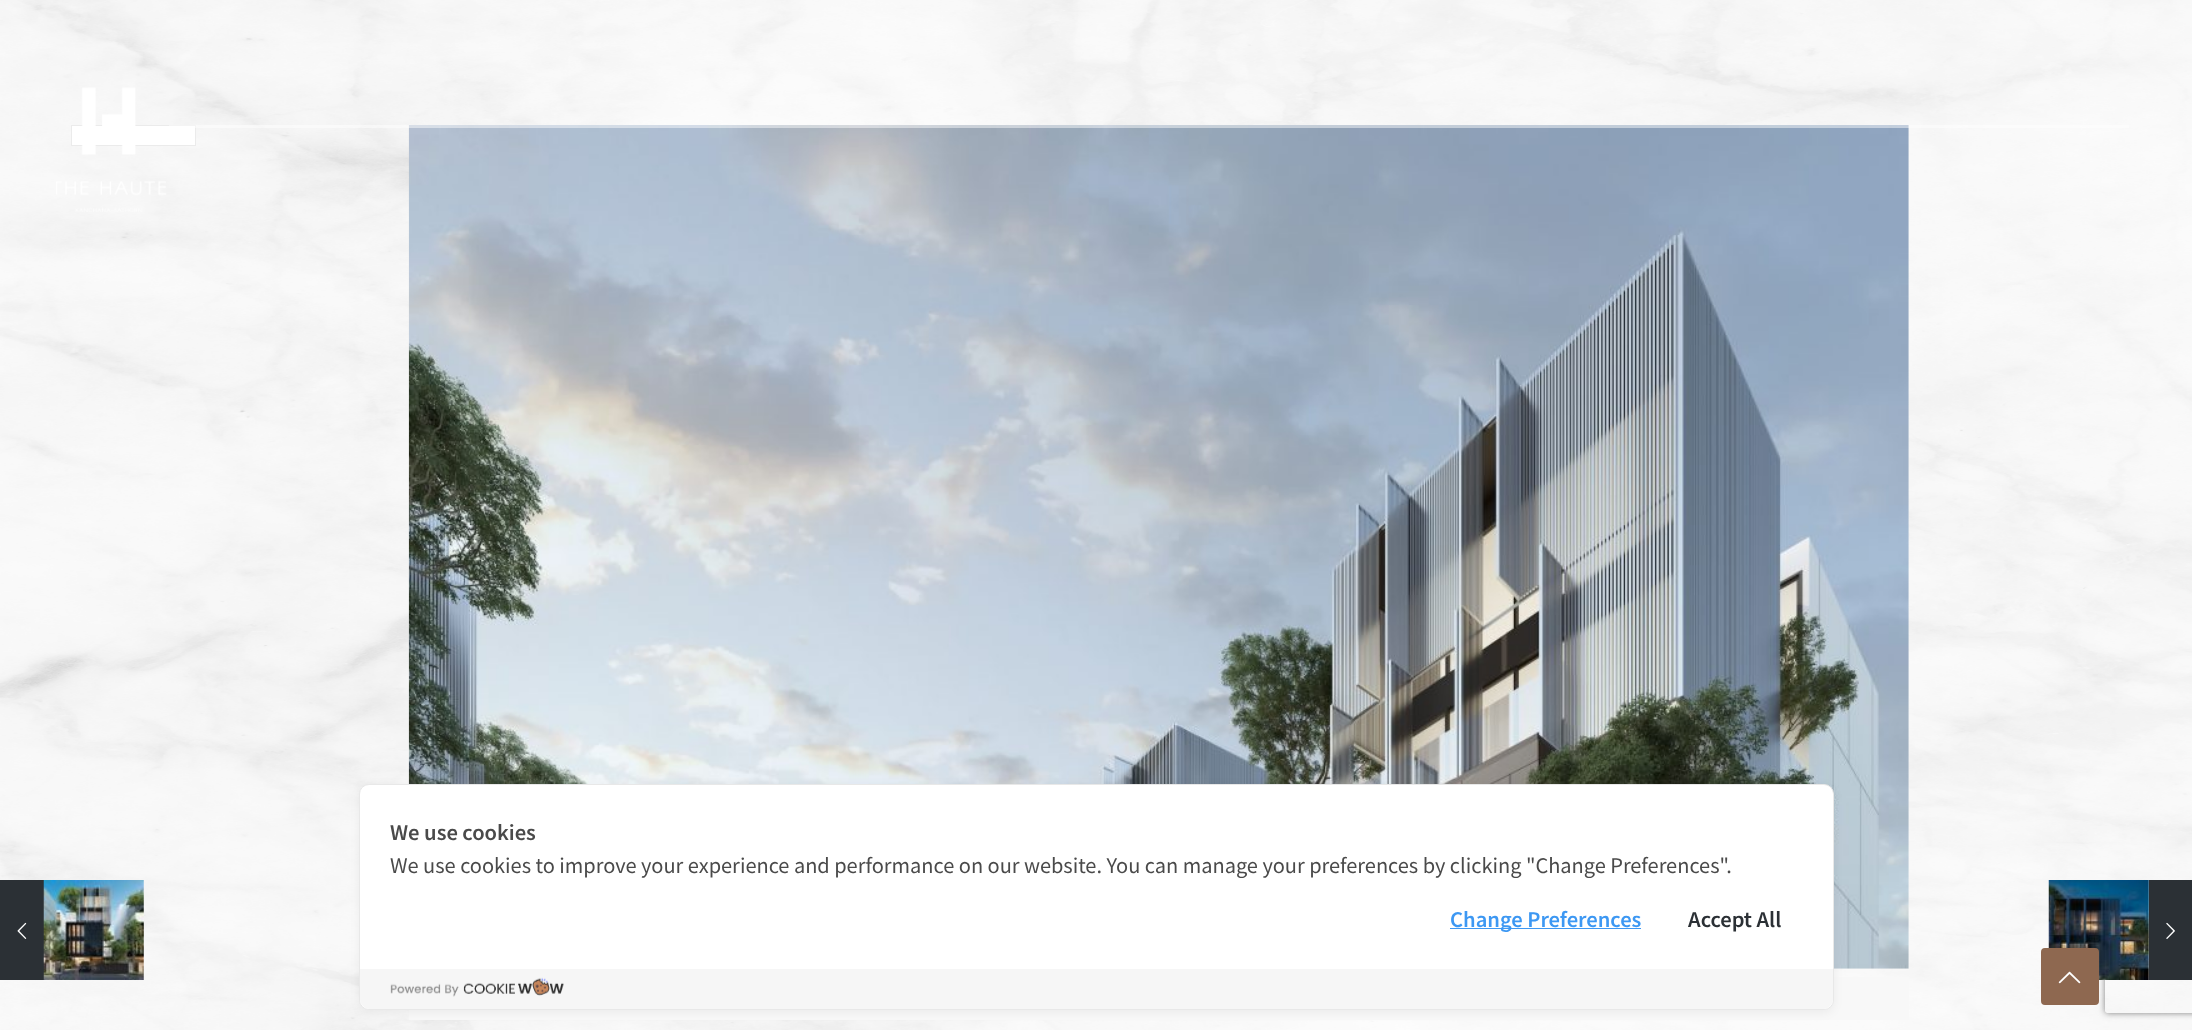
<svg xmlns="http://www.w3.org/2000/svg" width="2192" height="1030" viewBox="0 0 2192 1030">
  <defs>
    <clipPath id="clip1"><path d="M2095 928H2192V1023H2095ZM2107.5 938H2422.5C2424 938 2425 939 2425 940.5V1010.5C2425 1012 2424 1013 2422.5 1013H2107.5C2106 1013 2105 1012 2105 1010.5V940.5C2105 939 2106 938 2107.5 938Z" clip-rule="evenodd"/></clipPath>
  </defs>
  <rect width="100%" height="100%" fill="rgb(255,255,255)"/>
  <image x="0" y="0" width="2192" height="1030" href="pic1.png"/>
  <rect x="71.5" y="125.5" width="124" height="20" fill="rgb(255,255,255)" stroke="rgb(235,235,235)"/>
  <image x="408" y="125" width="1501" height="844" href="pic2.png"/>
  <rect x="409" y="977" width="1500" height="43" fill="rgb(248,248,248)"/>
  <rect x="169" y="125" width="1960" height="3" fill="rgba(255,255,255,0.47)"/>
  <image x="56" y="87" width="110" height="125" href="pic3.png"/>
  <rect x="0" y="880" width="44" height="100" fill="rgb(43,48,53)"/>
  <image x="17" y="922" width="10" height="17" href="pic4.png"/>
  <image x="43" y="880" width="101" height="100" href="pic5.png"/>
  <rect x="359" y="786" width="1475" height="227" rx="10" fill="rgba(0,0,0,0.05)" filter="blur(5px)"/>
  <rect x="359.5" y="784.5" width="1474" height="225" rx="9.5" fill="rgb(255,255,255)" stroke="rgb(232,232,232)"/>
  <text x="390" y="840" font-family="Noto Sans JP" font-size="20" font-weight="600" fill="rgb(74,74,74)">We use cookies</text>
  <text x="390" y="873" font-family="Noto Sans JP" font-size="20" fill="rgb(74,74,74)">We use cookies to improve your experience and performance on our website. You can manage your preferences by clicking "Change Preferences".</text>
  <rect x="1450" y="928" width="191" height="1" fill="rgb(61,152,243)"/>
  <text x="1450" y="927" font-family="Noto Sans JP" font-size="20" font-weight="600" fill="rgb(61,152,243)">Change Preferences</text>
  <text x="1688" y="927" font-family="Noto Sans JP" font-size="20" font-weight="600" fill="rgb(43,48,53)">Accept All</text>
  <path d="M360 969H1833V999C1833 1004.5 1828.5 1009 1823 1009H370C364.5 1009 360 1004.5 360 999Z" fill="rgb(246,246,246)"/>
  <image x="390" y="977" width="174" height="20" href="pic6.png"/>
  <g clip-path="url(#clip1)">
    <rect x="2105" y="938" width="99" height="75" rx="2.5" fill="rgb(128,128,128)" filter="blur(3px)"/>
  </g>
  <image x="2048" y="880" width="101" height="100" href="pic7.png"/>
  <rect x="2149" y="880" width="43" height="100" fill="rgb(43,48,53)"/>
  <image x="2166" y="922" width="9" height="17" href="pic8.png"/>
  <rect x="2042.5" y="949.5" width="55" height="54" rx="2.5" fill="rgb(142,104,80)" stroke="rgb(142,104,80)" stroke-width="3"/>
  <image x="2058" y="971" width="23" height="13" href="pic9.png"/>
</svg>
